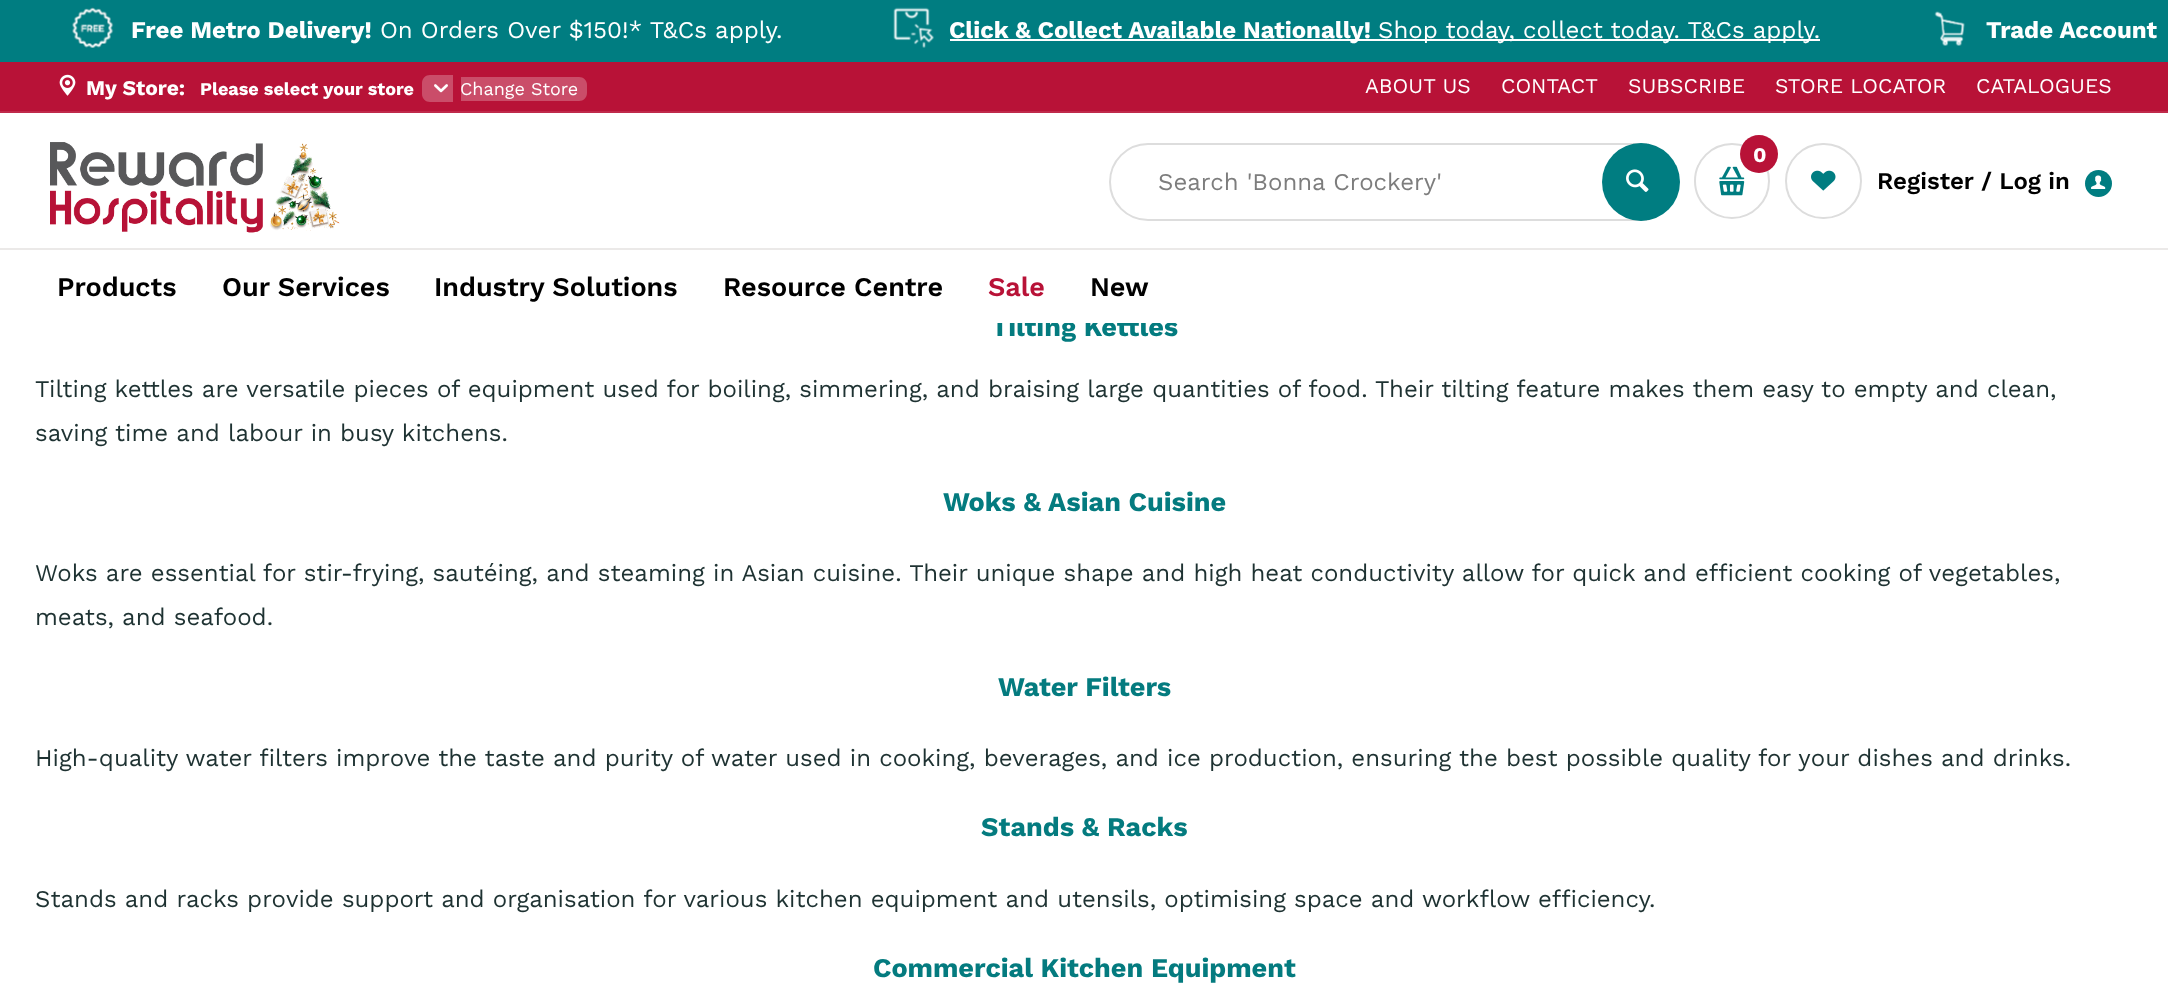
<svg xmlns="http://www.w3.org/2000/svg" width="2168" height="984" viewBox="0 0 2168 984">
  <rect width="100%" height="100%" fill="rgb(255,255,255)"/>
  <rect x="0" y="62" width="2168" height="49" fill="rgb(184,18,55)"/>
  <rect x="0" y="111" width="2168" height="2" fill="rgb(191,42,75)"/>
  <rect x="0" y="0" width="2168" height="62" fill="rgb(0,125,129)"/>
  <image x="72" y="7" width="42" height="41" href="pic1.png"/>
  <text x="131" y="38" font-family="Work Sans" font-size="24" font-weight="bold" fill="rgb(255,255,255)">Free Metro Delivery!</text>
  <text x="380" y="38" font-family="Work Sans" font-size="24" fill="rgb(255,255,255)">On Orders Over $150!* T&amp;Cs apply.</text>
  <image x="893" y="7" width="41" height="41" href="pic2.png"/>
  <rect x="950" y="39" width="870" height="2" fill="rgb(255,255,255)"/>
  <text x="949" y="38" font-family="Work Sans" font-size="24" font-weight="bold" fill="rgb(255,255,255)">Click &amp; Collect Available Nationally!</text>
  <text x="1378" y="38" font-family="Work Sans" font-size="24" fill="rgb(255,255,255)">Shop today, collect today. T&amp;Cs apply.</text>
  <image x="1934" y="11" width="31" height="35" href="pic3.png"/>
  <text x="1986" y="38" font-family="Work Sans" font-size="24" font-weight="bold" fill="rgb(255,255,255)">Trade Account</text>
  <image x="59" y="74" width="17" height="22" href="pic4.png"/>
  <text x="86" y="95" font-family="Work Sans" font-size="21" font-weight="bold" fill="rgb(255,255,255)">My Store:</text>
  <text x="200" y="95" font-family="Work Sans" font-size="18" font-weight="bold" fill="rgb(255,255,255)">Please select your store</text>
  <path d="M430 75H453V102H430C425.5 102 422 98.5 422 94V83C422 78.5 425.5 75 430 75Z" fill="rgb(202,77,105)"/>
  <image x="434" y="84" width="14" height="9" href="pic5.png"/>
  <path d="M461 77H579C583.5 77 587 80.5 587 85V93C587 97.5 583.5 101 579 101H461Z" fill="rgb(202,77,105)"/>
  <text x="460" y="95" font-family="Work Sans" font-size="18" fill="rgb(255,255,255)">Change Store</text>
  <g font-family="Work Sans" font-size="21" fill="rgb(255,255,255)">
    <text x="1365" y="93">ABOUT US</text>
    <text x="1501" y="93">CONTACT</text>
    <text x="1628" y="93">SUBSCRIBE</text>
    <text x="1775" y="93">STORE LOCATOR</text>
    <text x="1976" y="93">CATALOGUES</text>
  </g>
  <image x="50" y="142" width="290" height="91" href="pic6.png"/>
  <circle cx="1732" cy="181" r="37" fill="none" stroke="rgb(221,221,221)" stroke-width="2"/>
  <image x="1719" y="166" width="26" height="30" href="pic7.png"/>
  <circle cx="1759" cy="154" r="19" fill="rgb(184,18,55)"/>
  <text x="1753" y="162" font-family="Work Sans" font-size="21" font-weight="bold" fill="rgb(255,255,255)">0</text>
  <rect x="1786" y="144" width="75" height="74" rx="37" fill="none" stroke="rgb(221,221,221)" stroke-width="2"/>
  <image x="1811" y="170" width="25" height="21" href="pic8.png"/>
  <path d="M1148 144H1646V220H1148C1127 220 1110 203 1110 182C1110 161 1127 144 1148 144Z" fill="none" stroke="rgb(221,221,221)" stroke-width="2"/>
  <text x="1158" y="190" font-family="Work Sans" font-size="24" fill="rgb(125,125,125)">Search 'Bonna Crockery'</text>
  <circle cx="1641" cy="182" r="39" fill="rgb(0,125,129)"/>
  <image x="1626" y="169" width="23" height="23" href="pic9.png"/>
  <text x="1877" y="189" font-family="Work Sans" font-size="24" font-weight="600" fill="rgb(0,0,0)">Register / Log in</text>
  <circle cx="2098.5" cy="183.5" r="13.5" fill="rgb(0,125,129)"/>
  <image x="2091" y="175" width="15" height="14" href="pic10.png"/>
  <text x="991" y="336" font-family="Work Sans" font-size="27" font-weight="bold" fill="rgb(4,123,127)">Tilting Kettles</text>
  <rect x="991" y="316" width="184" height="7" fill="rgb(255,255,255)"/>
  <rect x="0" y="248" width="2168" height="2" fill="rgb(235,233,232)"/>
  <g font-family="Work Sans" font-size="27" font-weight="600" fill="rgb(0,0,0)">
    <text x="57" y="296">Products</text>
    <text x="222" y="296">Our Services</text>
    <text x="434" y="296">Industry Solutions</text>
    <text x="723" y="296">Resource Centre</text>
  </g>
  <text x="988" y="296" font-family="Work Sans" font-size="27" font-weight="600" fill="rgb(184,18,55)">Sale</text>
  <text x="1090" y="296" font-family="Work Sans" font-size="27" font-weight="600" fill="rgb(0,0,0)">New</text>
  <g font-family="Work Sans" font-size="24" fill="rgb(30,50,50)">
    <text>
      <tspan x="35" y="397">Tilting kettles are versatile pieces of equipment used for boiling, simmering, and braising large quantities of food. Their tilting feature makes them easy to empty and clean,</tspan>
      <tspan x="35" y="441">saving time and labour in busy kitchens.</tspan>
    </text>
  </g>
  <text x="943" y="511" font-family="Work Sans" font-size="27" font-weight="bold" fill="rgb(4,123,127)">Woks &amp; Asian Cuisine</text>
  <g font-family="Work Sans" font-size="24" fill="rgb(30,50,50)">
    <text>
      <tspan x="35" y="581">Woks are essential for stir-frying, sautéing, and steaming in Asian cuisine. Their unique shape and high heat conductivity allow for quick and efficient cooking of vegetables,</tspan>
      <tspan x="35" y="625">meats, and seafood.</tspan>
    </text>
  </g>
  <text x="998" y="696" font-family="Work Sans" font-size="27" font-weight="bold" fill="rgb(4,123,127)">Water Filters</text>
  <text x="35" y="766" font-family="Work Sans" font-size="24" fill="rgb(30,50,50)">High-quality water filters improve the taste and purity of water used in cooking, beverages, and ice production, ensuring the best possible quality for your dishes and drinks.</text>
  <text x="981" y="836" font-family="Work Sans" font-size="27" font-weight="bold" fill="rgb(4,123,127)">Stands &amp; Racks</text>
  <text x="35" y="907" font-family="Work Sans" font-size="24" fill="rgb(30,50,50)">Stands and racks provide support and organisation for various kitchen equipment and utensils, optimising space and workflow efficiency.</text>
  <text x="873" y="977" font-family="Work Sans" font-size="27" font-weight="bold" fill="rgb(4,123,127)">Commercial Kitchen Equipment</text>
</svg>
